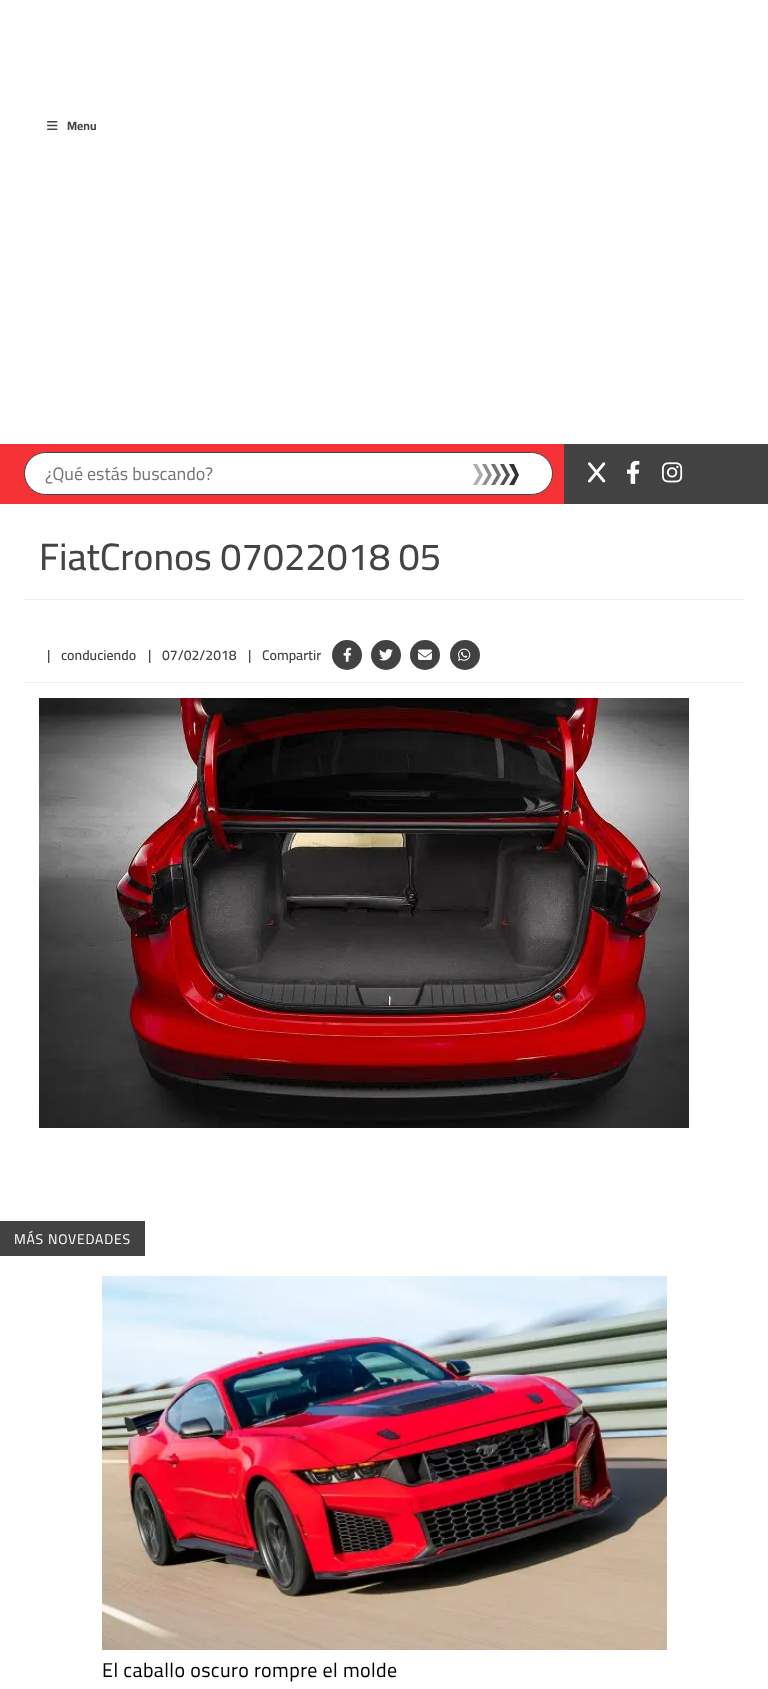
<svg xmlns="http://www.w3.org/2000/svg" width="768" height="1689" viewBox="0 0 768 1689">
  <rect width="100%" height="100%" fill="rgb(255,255,255)"/>
  <image x="47" y="121" width="11" height="9" href="pic1.png"/>
  <text x="67" y="130" font-family="Cairo" font-size="12" font-weight="bold" fill="rgb(68,68,68)">Menu</text>
  <rect x="564" y="444" width="204" height="60" fill="rgb(66,66,66)"/>
  <rect x="0" y="444" width="564" height="60" fill="rgb(245,50,54)"/>
  <rect x="24.5" y="452.5" width="528" height="42" rx="21" fill="rgb(255,255,255)" stroke="rgb(66,66,66)"/>
  <text x="45" y="480" font-family="Cairo" font-size="18" fill="rgb(117,117,117)">¿Qué estás buscando?</text>
  <image x="473" y="464" width="46" height="21" href="pic2.png"/>
  <image x="588" y="462" width="18" height="21" href="pic3.png"/>
  <image x="627" y="460" width="13" height="24" href="pic4.png"/>
  <image x="662" y="462" width="21" height="21" href="pic5.png"/>
  <rect x="24" y="599" width="720" height="1" fill="rgb(238,238,238)"/>
  <text x="39" y="570" font-family="Cairo" font-size="38" font-weight="500" fill="rgb(68,68,68)">FiatCronos 07022018 05</text>
  <rect x="24" y="682" width="720" height="1" fill="rgb(238,238,238)"/>
  <g font-family="Cairo" font-size="14" font-weight="600" fill="rgb(68,68,68)">
    <text x="47" y="660">|</text>
    <text x="61" y="660">conduciendo</text>
    <text x="148" y="660">|</text>
    <text x="162" y="660">07/02/2018</text>
    <text x="248" y="660">|</text>
    <text x="262" y="660">Compartir</text>
  </g>
  <circle cx="347" cy="655" r="15" fill="rgb(66,66,67)"/>
  <image x="343" y="647" width="9" height="15" href="pic6.png"/>
  <circle cx="386" cy="655" r="15" fill="rgb(66,66,67)"/>
  <image x="379" y="649" width="14" height="12" href="pic7.png"/>
  <circle cx="425" cy="655" r="15" fill="rgb(66,66,67)"/>
  <image x="418" y="649" width="14" height="11" href="pic8.png"/>
  <circle cx="465" cy="655" r="15" fill="rgb(66,66,67)"/>
  <image x="458" y="648" width="13" height="13" href="pic9.png"/>
  <image x="39" y="698" width="650" height="430" href="pic10.png"/>
  <rect x="0" y="1221" width="145" height="35" fill="rgb(66,66,67)"/>
  <text x="14" y="1244" font-family="Cairo" font-size="14" letter-spacing="0.8" fill="rgb(255,255,255)">MÁS NOVEDADES</text>
  <image x="102" y="1276" width="565" height="374" href="pic11.png"/>
  <text x="102" y="1677" font-family="Cairo" font-size="20" letter-spacing="0.4" fill="rgb(0,0,0)">El caballo oscuro rompre el molde</text>
</svg>
